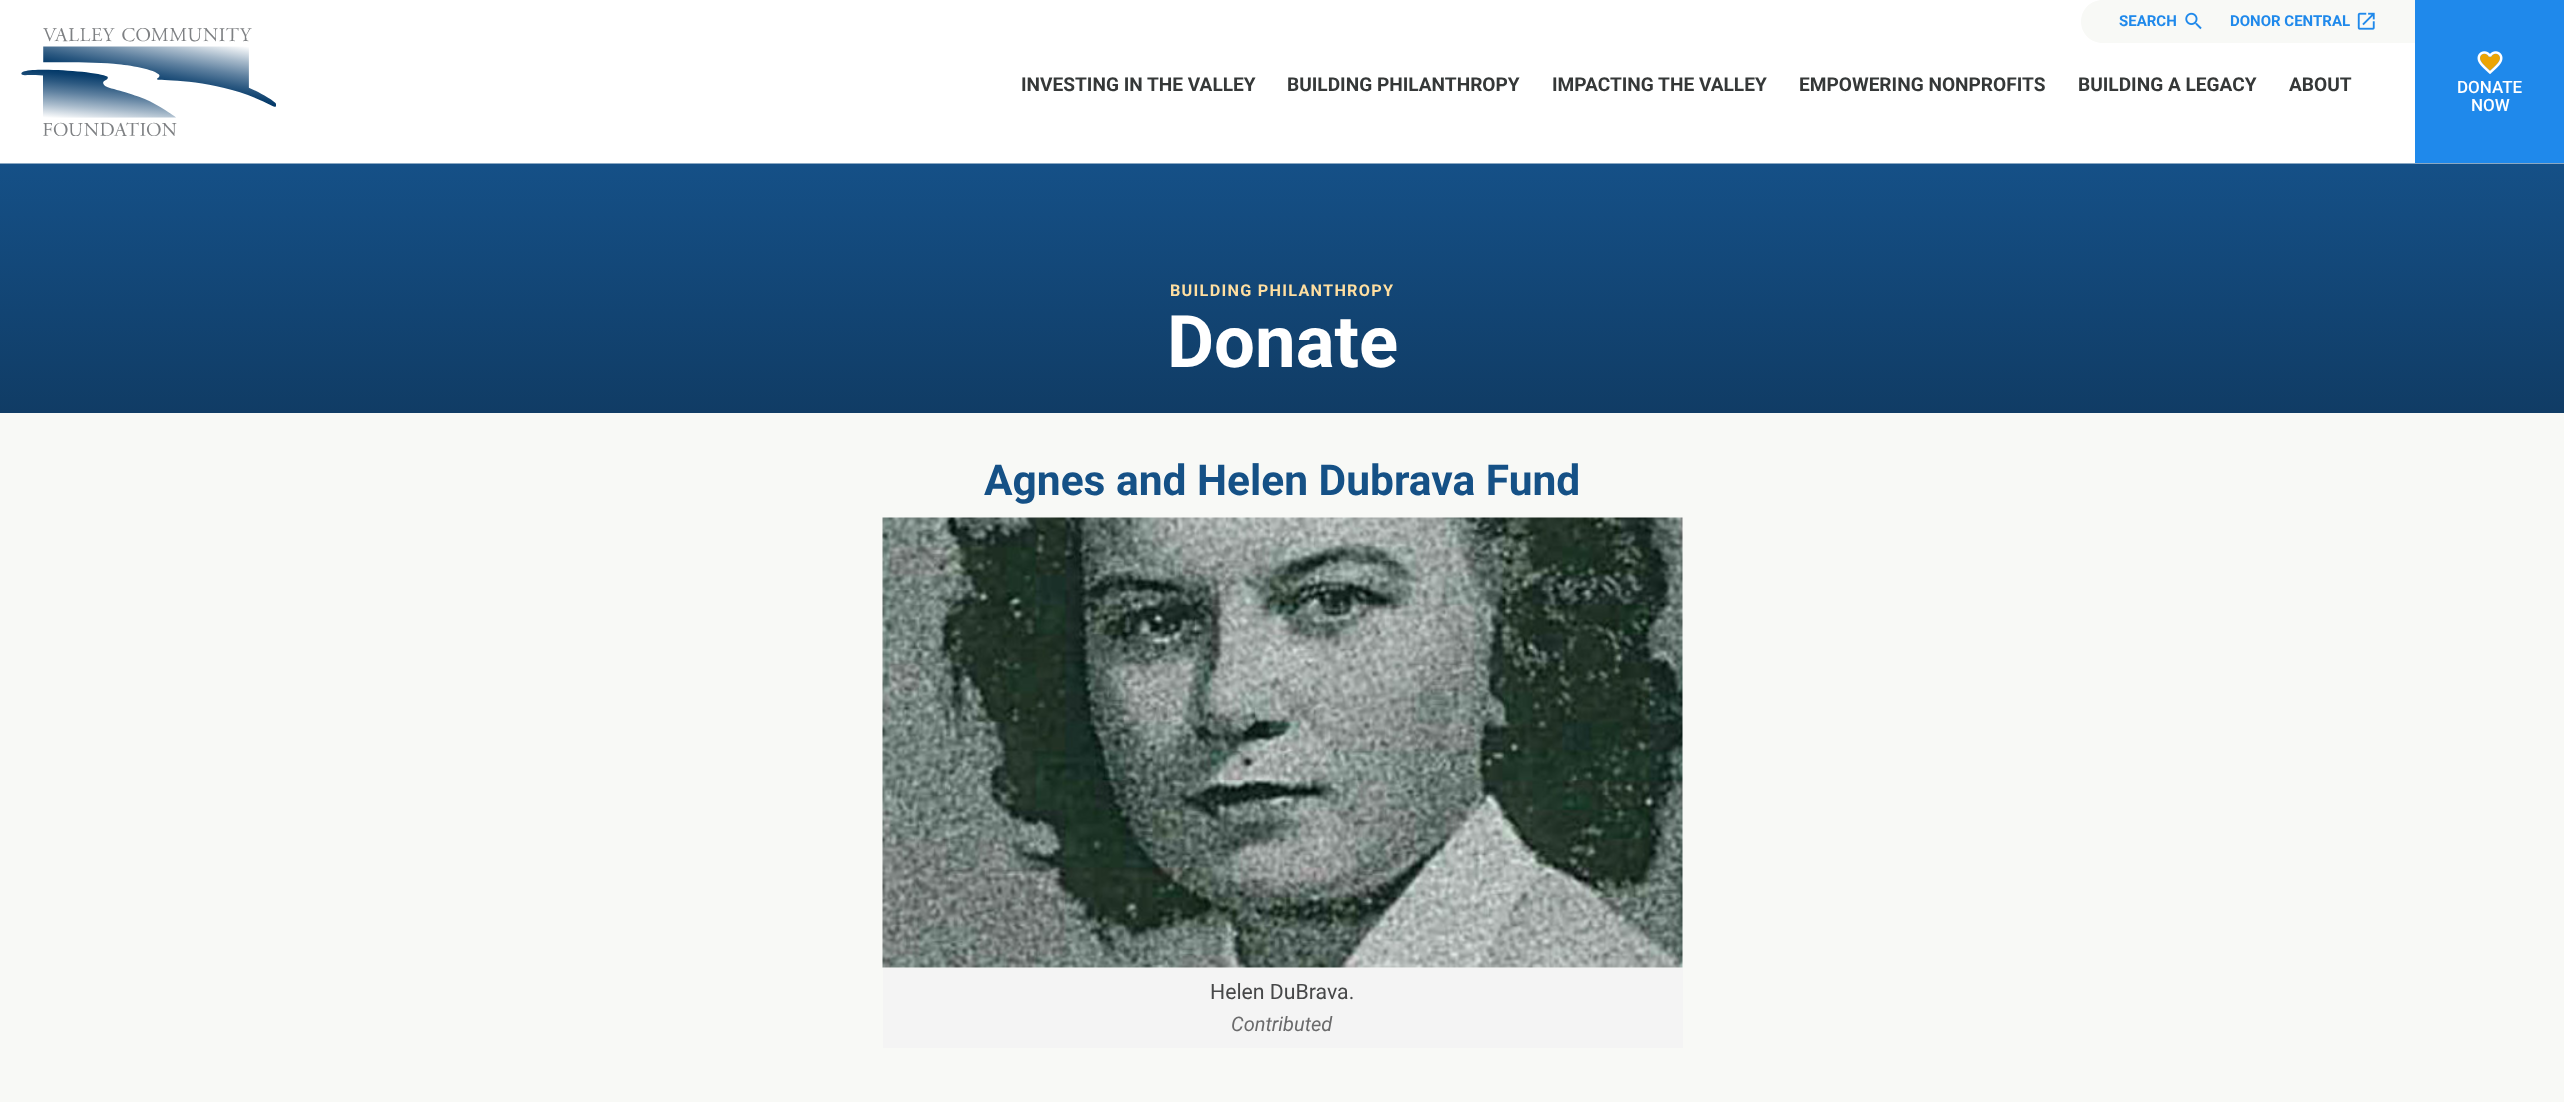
<svg xmlns="http://www.w3.org/2000/svg" width="2564" height="1102" viewBox="0 0 2564 1102">
  <defs>
    <clipPath id="clip1"><path d="M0 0H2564V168H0ZM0 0H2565V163H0Z" clip-rule="evenodd"/></clipPath>
    <linearGradient id="g1" gradientUnits="userSpaceOnUse" x1="1283" y1="413" x2="1283" y2="164"><stop offset="0" stop-color="rgb(16,60,101)"/><stop offset="1" stop-color="rgb(21,80,135)"/></linearGradient>
  </defs>
  <rect width="100%" height="100%" fill="rgb(255,255,255)"/>
  <g clip-path="url(#clip1)">
    <rect x="0" y="1" width="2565" height="163" fill="rgba(0,0,0,0.08)" filter="blur(1px)"/>
  </g>
  <image x="21" y="28" width="255" height="108" href="pic1.png"/>
  <path d="M2102.5 0H2415V43H2102.5C2090.5 43 2081 33.5 2081 21.5C2081 9.5 2090.5 0 2102.5 0Z" fill="rgb(248,249,246)"/>
  <text x="2119" y="26" font-family="Roboto" font-size="15" font-weight="bold" fill="rgb(31,137,235)">SEARCH</text>
  <image x="2185" y="12" width="17" height="18" href="pic2.png"/>
  <text x="2230" y="26" font-family="Roboto" font-size="15" font-weight="bold" fill="rgb(31,137,235)">DONOR CENTRAL</text>
  <image x="2357" y="12" width="18" height="18" href="pic3.png"/>
  <g font-family="Roboto" font-size="19.1" font-weight="bold" fill="rgb(53,56,56)">
    <text x="1021" y="91">INVESTING IN THE VALLEY</text>
    <text x="1287" y="91">BUILDING PHILANTHROPY</text>
    <text x="1552" y="91">IMPACTING THE VALLEY</text>
    <text x="1799" y="91">EMPOWERING NONPROFITS</text>
    <text x="2078" y="91">BUILDING A LEGACY</text>
    <text x="2289" y="91">ABOUT</text>
  </g>
  <rect x="2415" y="0" width="149" height="163" fill="rgb(31,137,235)"/>
  <image x="2477" y="51" width="26" height="23" href="pic4.png"/>
  <g font-family="Roboto" font-size="17" font-weight="500" fill="rgb(255,255,255)">
    <text x="2457" y="93">DONATE</text>
    <text x="2471" y="111">NOW</text>
  </g>
  <rect x="0" y="163" width="2564" height="1" fill="rgb(138,168,195)"/>
  <rect x="0" y="164" width="2564" height="249" fill="url(#g1)"/>
  <text x="1170" y="296" font-family="Roboto" font-size="16.25" font-weight="bold" letter-spacing="1.25" fill="rgb(255,223,161)">BUILDING PHILANTHROPY</text>
  <text x="1167" y="367" font-family="Roboto" font-size="72.5" font-weight="bold" fill="rgb(255,255,255)">Donate</text>
  <rect x="0" y="413" width="2564" height="689" fill="rgb(248,249,246)"/>
  <text x="984" y="495" font-family="Roboto" font-size="42.5" font-weight="bold" fill="rgb(21,81,134)">Agnes and Helen Dubrava Fund</text>
  <image x="882" y="517" width="801" height="451" href="pic5.png"/>
  <rect x="883" y="968" width="800" height="80" fill="rgb(244,244,244)"/>
  <text x="1210" y="999" font-family="Roboto" font-size="21.25" fill="rgb(71,72,73)">Helen DuBrava.</text>
  <text x="1231" y="1031" font-family="Roboto" font-size="20" font-style="italic" fill="rgb(106,106,107)">Contributed</text>
</svg>
